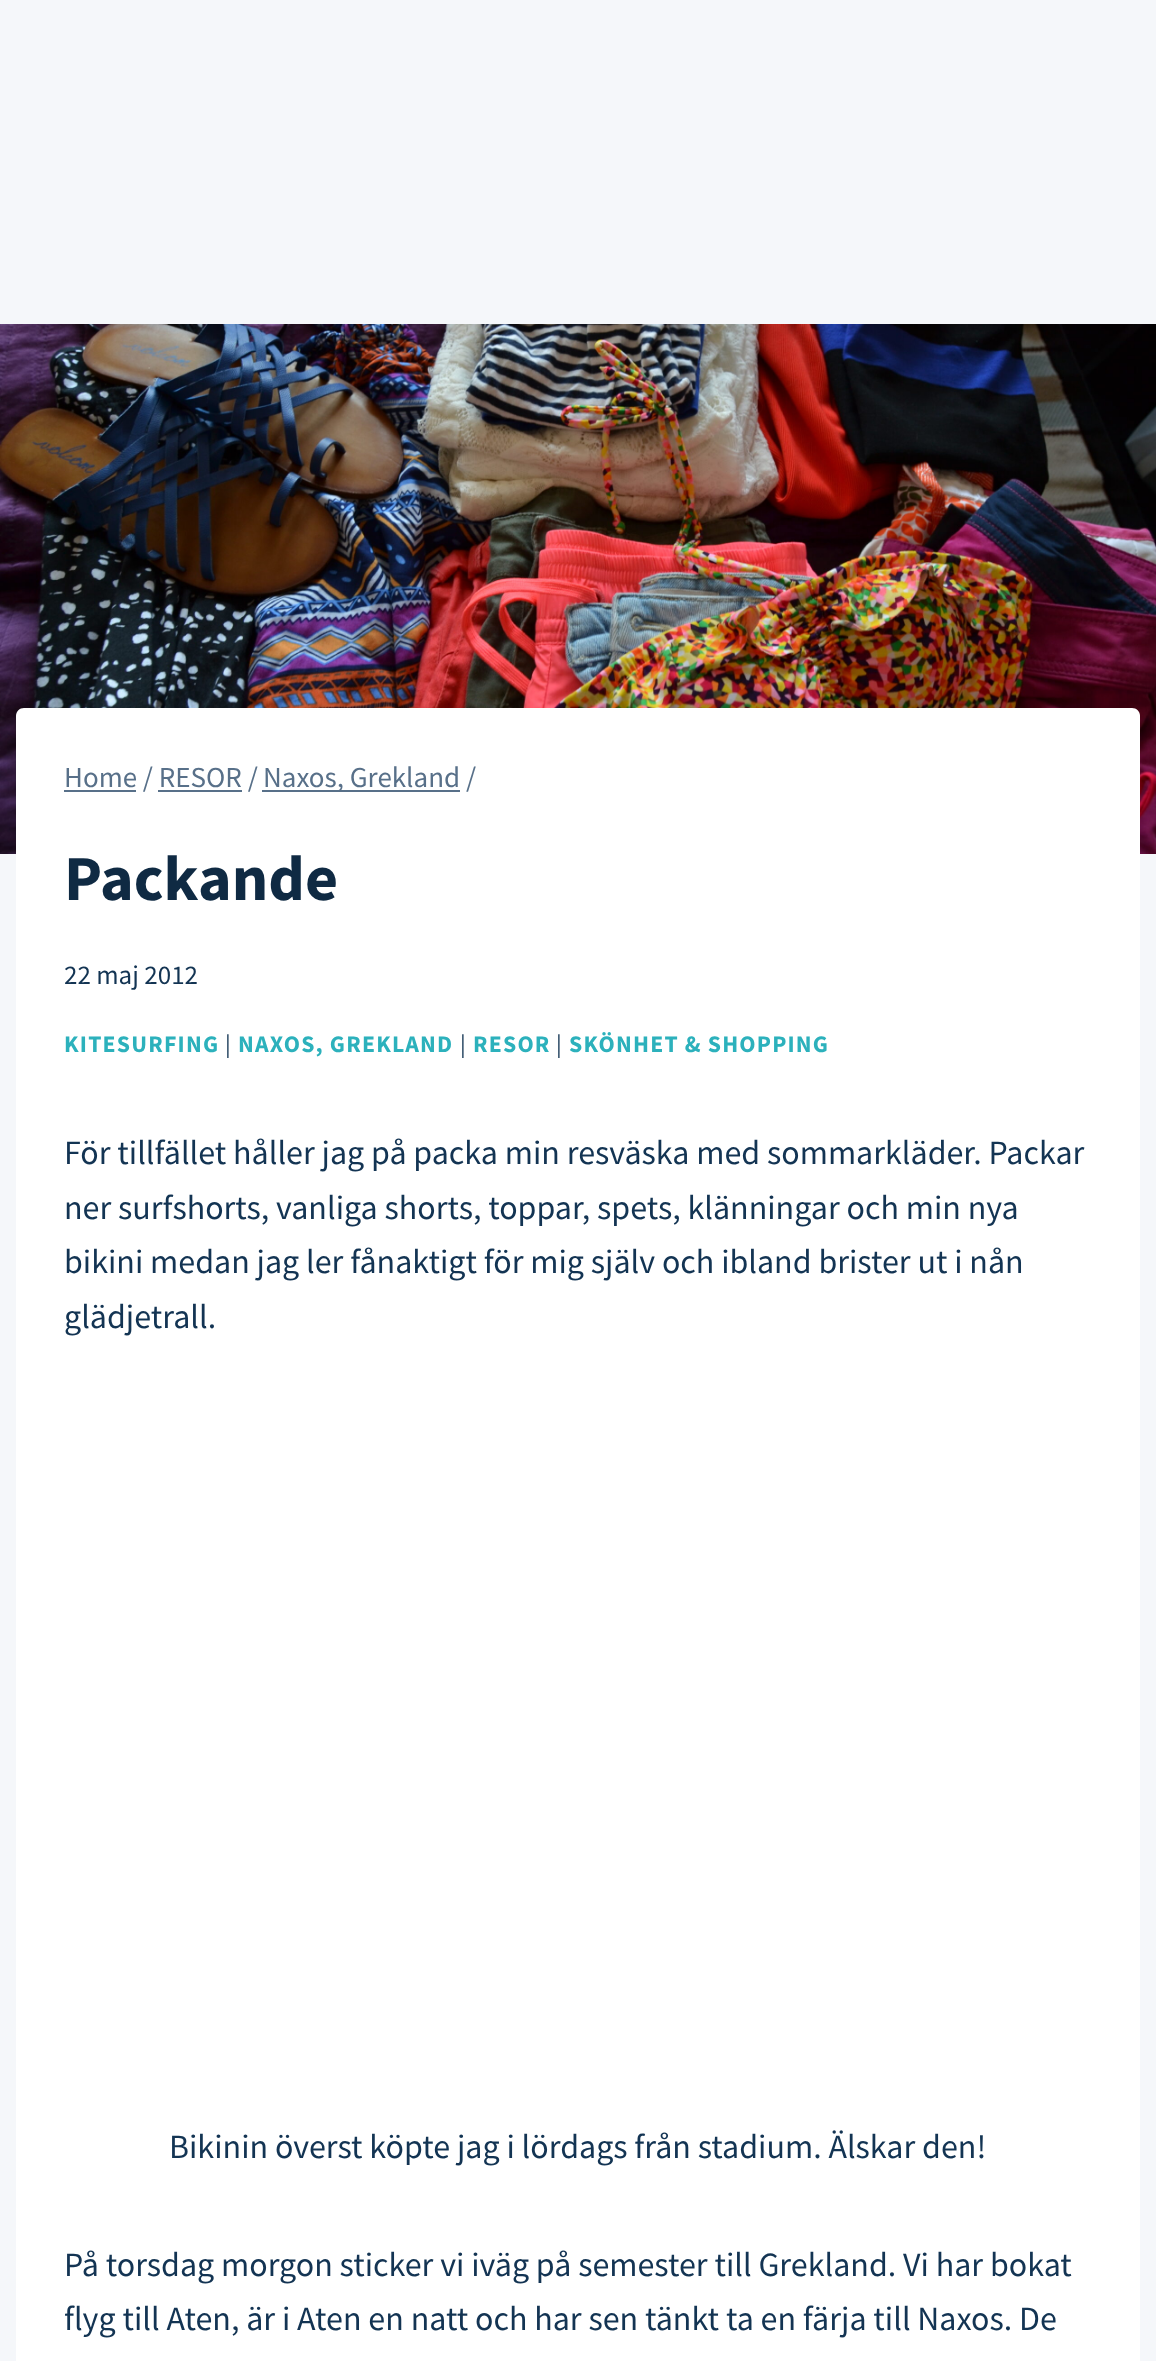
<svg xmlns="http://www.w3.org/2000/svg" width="1156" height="2361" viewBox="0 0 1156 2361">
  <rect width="100%" height="100%" fill="rgb(245,247,250)"/>
  <image x="0" y="324" width="1156" height="530" href="pic1.png"/>
  <path d="M24 708H1132C1136.5 708 1140 711.5 1140 716V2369H16V716C16 711.5 19.5 708 24 708Z" fill="rgb(255,255,255)"/>
  <rect x="64" y="790" width="72" height="2" fill="rgb(88,112,137)"/>
  <text x="64" y="787" font-family="Source Sans Pro" font-size="29" fill="rgb(88,112,137)">Home / RESOR /</text>
  <rect x="262" y="790" width="198" height="2" fill="rgb(88,112,137)"/>
  <text x="263" y="787" font-family="Source Sans Pro" font-size="29" fill="rgb(88,112,137)">Naxos, Grekland /</text>
  <rect x="158" y="790" width="84" height="2" fill="rgb(88,112,137)"/>
  <text x="64" y="900" font-family="Source Sans Pro" font-size="64" font-weight="bold" fill="rgb(15,42,67)">Packande</text>
  <text x="64" y="984" font-family="Source Sans Pro" font-size="27" fill="rgb(19,52,83)">22 maj 2012</text>
  <text x="64" y="1052" font-family="Source Sans Pro" font-size="23.75" font-weight="bold" letter-spacing="1.2" fill="rgb(44,177,188)">KITESURFING</text>
  <text x="225" y="1052" font-family="Source Sans Pro" font-size="23.75" letter-spacing="1.2" fill="rgb(19,52,83)">|</text>
  <text x="238" y="1052" font-family="Source Sans Pro" font-size="23.75" font-weight="bold" letter-spacing="1.2" fill="rgb(44,177,188)">NAXOS, GREKLAND</text>
  <text x="460" y="1052" font-family="Source Sans Pro" font-size="23.75" letter-spacing="1.2" fill="rgb(19,52,83)">|</text>
  <text x="473" y="1052" font-family="Source Sans Pro" font-size="23.75" font-weight="bold" letter-spacing="1.2" fill="rgb(44,177,188)">RESOR</text>
  <text x="556" y="1052" font-family="Source Sans Pro" font-size="23.75" letter-spacing="1.2" fill="rgb(19,52,83)">|</text>
  <text x="569" y="1052" font-family="Source Sans Pro" font-size="23.75" font-weight="bold" letter-spacing="1.2" fill="rgb(44,177,188)">SKÖNHET &amp; SHOPPING</text>
  <g font-family="Source Sans Pro" font-size="34" fill="rgb(19,52,83)">
    <text>
      <tspan x="64" y="1164">För tillfället håller jag på packa min resväska med sommarkläder. Packar</tspan>
      <tspan x="64" y="1219">ner surfshorts, vanliga shorts, toppar, spets, klänningar och min nya</tspan>
      <tspan x="64" y="1273">bikini medan jag ler fånaktigt för mig själv och ibland brister ut i nån</tspan>
      <tspan x="64" y="1328">glädjetrall.</tspan>
    </text>
    <text x="169" y="2158">Bikinin överst köpte jag i lördags från stadium. Älskar den!</text>
    <text>
      <tspan x="64" y="2276">På torsdag morgon sticker vi iväg på semester till Grekland. Vi har bokat</tspan>
      <tspan x="64" y="2330">flyg till Aten, är i Aten en natt och har sen tänkt ta en färja till Naxos. De</tspan>
    </text>
  </g>
</svg>
